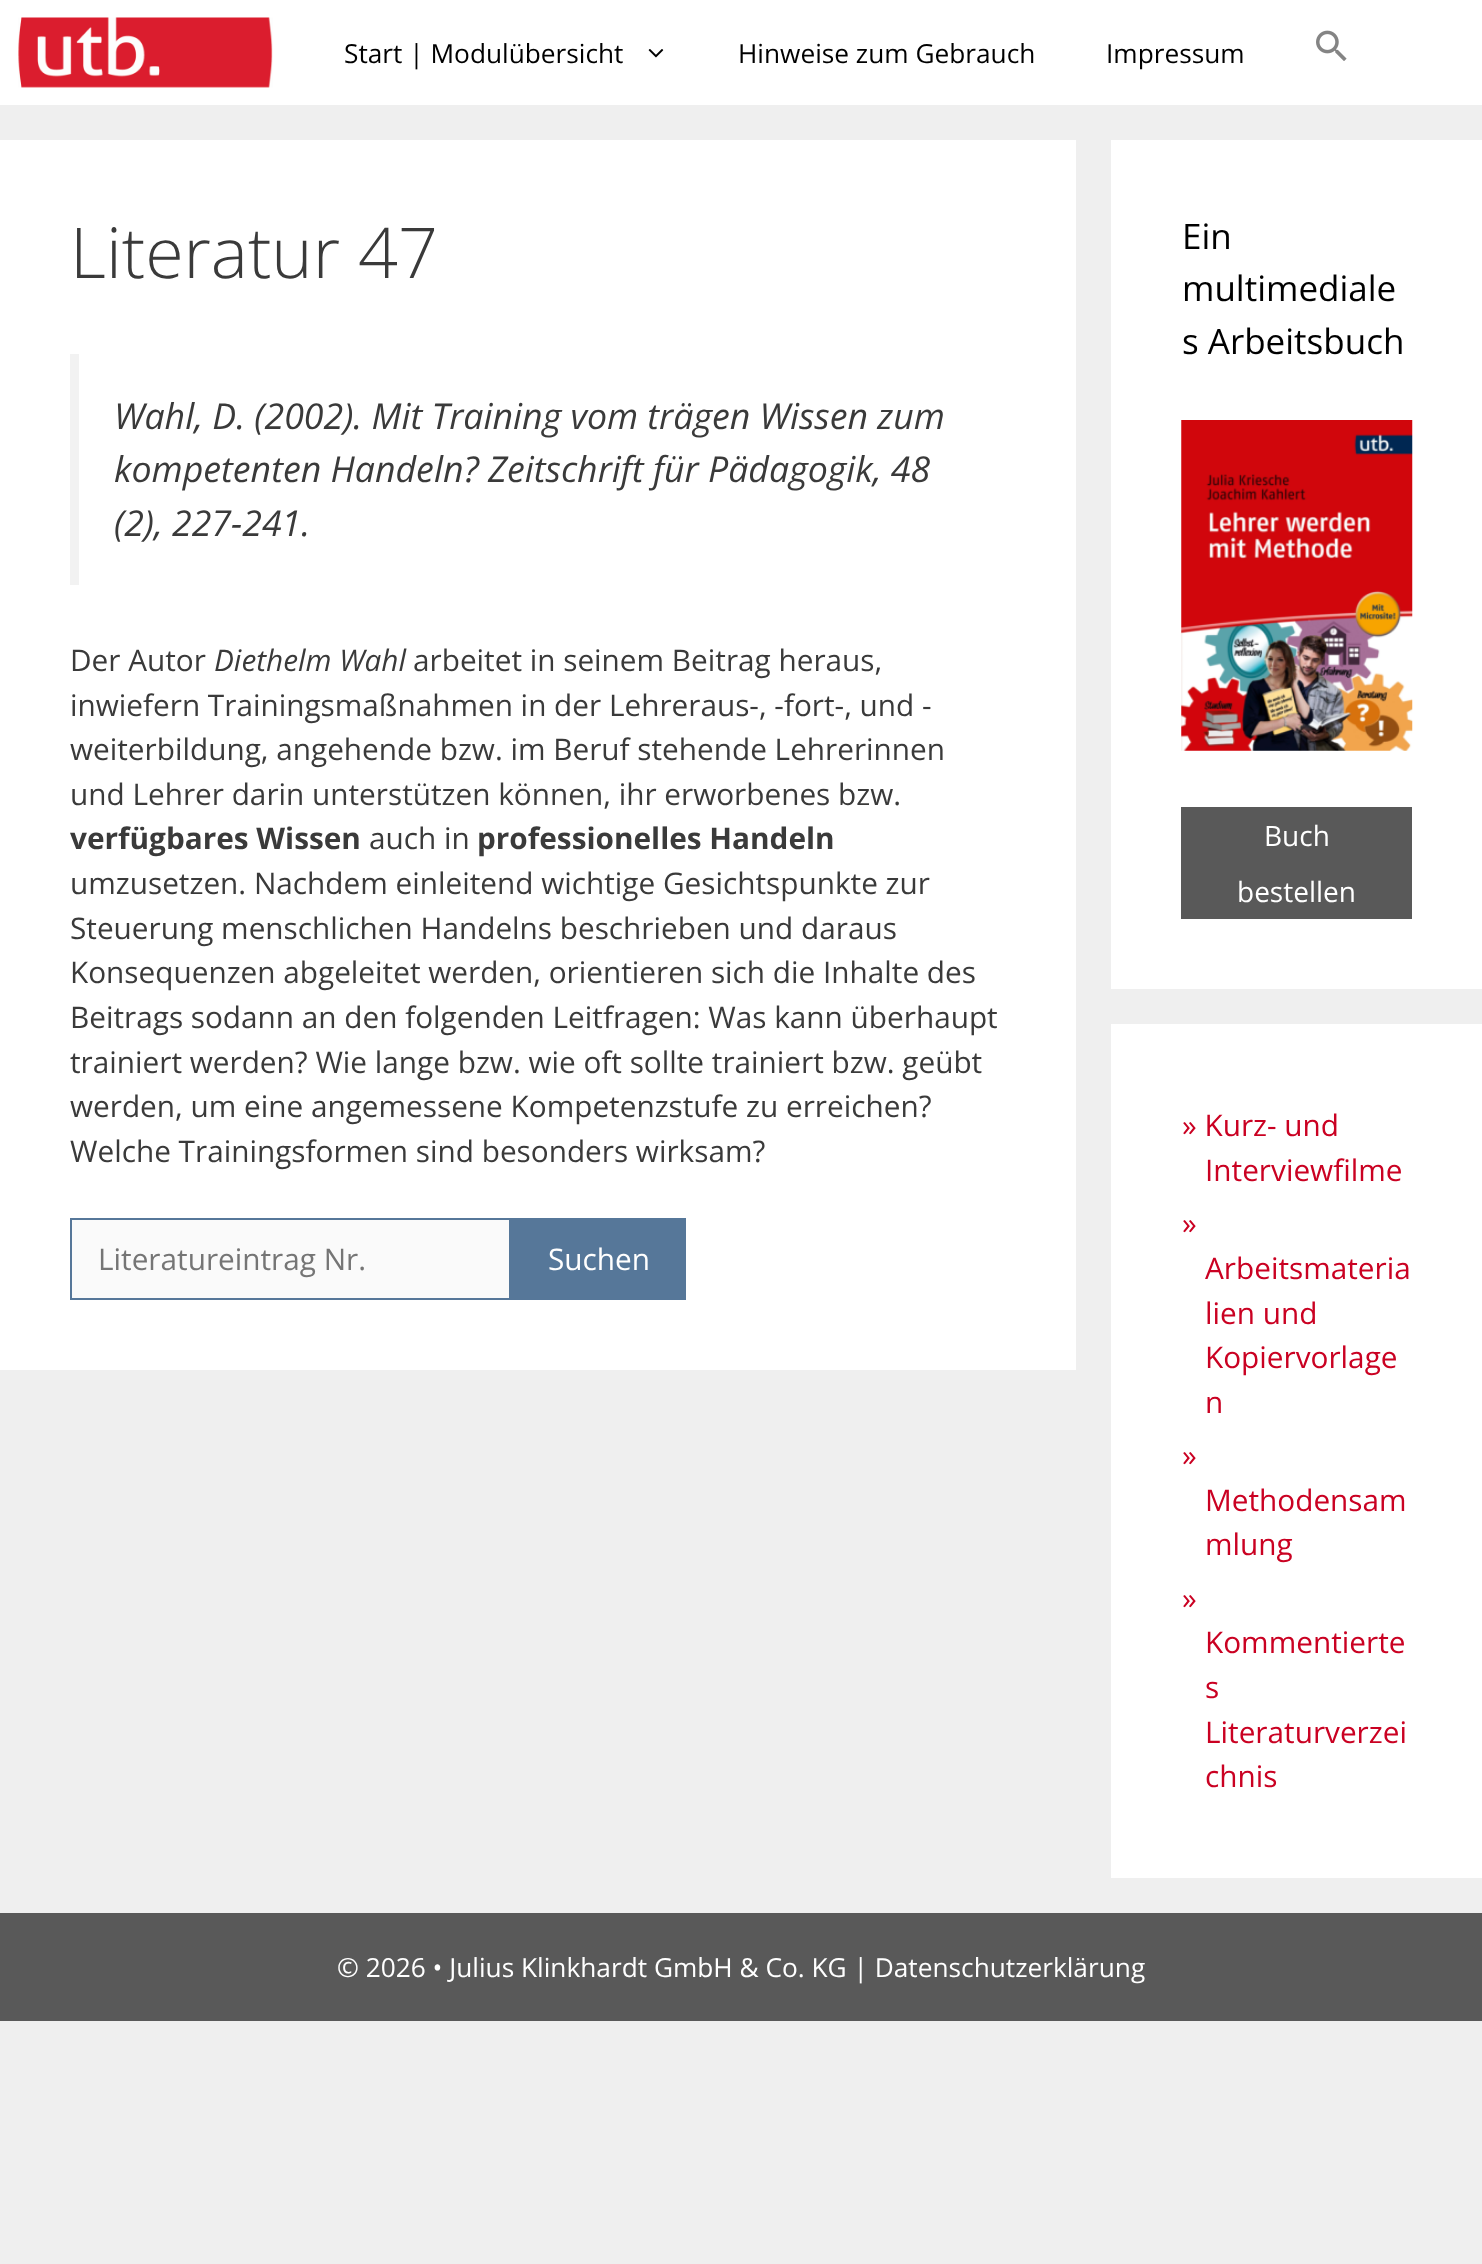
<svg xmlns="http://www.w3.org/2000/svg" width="1482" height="2264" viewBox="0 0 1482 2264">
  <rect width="100%" height="100%" fill="rgb(239,239,239)"/>
  <rect x="0" y="0" width="1482" height="105" fill="rgb(255,255,255)"/>
  <image x="18" y="17" width="255" height="71" href="pic1.png"/>
  <text x="344" y="63" font-family="Open Sans" font-size="26.25" fill="rgb(0,0,0)">Start | Modulübersicht</text>
  <image x="648" y="49" width="16" height="9" href="pic2.png"/>
  <g font-family="Open Sans" font-size="26.25" fill="rgb(0,0,0)">
    <text x="738" y="63">Hinweise zum Gebrauch</text>
    <text x="1106" y="63">Impressum</text>
  </g>
  <image x="1316" y="30" width="31" height="31" href="pic3.png"/>
  <rect x="0" y="140" width="1076" height="1230" fill="rgb(255,255,255)"/>
  <text x="70" y="278" font-family="Open Sans" font-size="70" font-weight="300" fill="rgb(58,58,58)">Literatur 47</text>
  <rect x="70" y="354" width="9" height="231" fill="rgb(242,242,242)"/>
  <g font-family="Open Sans" font-size="35.7" font-style="italic" fill="rgb(58,58,58)">
    <text>
      <tspan x="114" y="429">Wahl, D. (2002). Mit Training vom trägen Wissen zum</tspan>
      <tspan x="114" y="482">kompetenten Handeln? Zeitschrift für Pädagogik, 48</tspan>
      <tspan x="114" y="536">(2), 227-241.</tspan>
    </text>
  </g>
  <text x="70" y="671" font-family="Open Sans" font-size="29.75" fill="rgb(58,58,58)">Der Autor</text>
  <text x="214" y="671" font-family="Open Sans" font-size="29.75" font-style="italic" fill="rgb(58,58,58)">Diethelm Wahl</text>
  <g font-family="Open Sans" font-size="29.75" fill="rgb(58,58,58)">
    <text x="413" y="671">arbeitet in seinem Beitrag heraus,</text>
    <text>
      <tspan x="70" y="716">inwiefern Trainingsmaßnahmen in der Lehreraus-, -fort-, und -</tspan>
      <tspan x="70" y="760">weiterbildung, angehende bzw. im Beruf stehende Lehrerinnen</tspan>
      <tspan x="70" y="805">und Lehrer darin unterstützen können, ihr erworbenes bzw.</tspan>
    </text>
  </g>
  <text x="70" y="849" font-family="Open Sans" font-size="29.75" font-weight="bold" fill="rgb(58,58,58)">verfügbares Wissen</text>
  <text x="369" y="849" font-family="Open Sans" font-size="29.75" fill="rgb(58,58,58)">auch in</text>
  <text x="477" y="849" font-family="Open Sans" font-size="29.75" font-weight="bold" fill="rgb(58,58,58)">professionelles Handeln</text>
  <g font-family="Open Sans" font-size="29.75" fill="rgb(58,58,58)">
    <text>
      <tspan x="70" y="894">umzusetzen. Nachdem einleitend wichtige Gesichtspunkte zur</tspan>
      <tspan x="70" y="939">Steuerung menschlichen Handelns beschrieben und daraus</tspan>
      <tspan x="70" y="983">Konsequenzen abgeleitet werden, orientieren sich die Inhalte des</tspan>
      <tspan x="70" y="1028">Beitrags sodann an den folgenden Leitfragen: Was kann überhaupt</tspan>
      <tspan x="70" y="1073">trainiert werden? Wie lange bzw. wie oft sollte trainiert bzw. geübt</tspan>
      <tspan x="70" y="1117">werden, um eine angemessene Kompetenzstufe zu erreichen?</tspan>
      <tspan x="70" y="1162">Welche Trainingsformen sind besonders wirksam?</tspan>
    </text>
  </g>
  <rect x="71" y="1219" width="439" height="80" fill="rgb(250,250,250)" stroke="rgb(86,119,153)" stroke-width="2"/>
  <text x="98" y="1270" font-family="Open Sans" font-size="29.75" fill="rgb(117,117,117)">Literatureintrag Nr.</text>
  <rect x="511" y="1218" width="175" height="82" fill="rgb(86,119,153)"/>
  <text x="548" y="1270" font-family="Open Sans" font-size="29.75" fill="rgb(255,255,255)">Suchen</text>
  <rect x="1111" y="140" width="371" height="849" fill="rgb(255,255,255)"/>
  <g font-family="Open Sans" font-size="35" fill="rgb(0,0,0)">
    <text>
      <tspan x="1182" y="249">Ein</tspan>
      <tspan x="1182" y="301">multimediale</tspan>
      <tspan x="1182" y="354">s Arbeitsbuch</tspan>
    </text>
  </g>
  <image x="1181" y="420" width="232" height="331" href="pic4.png"/>
  <rect x="1181" y="807" width="231" height="112" fill="rgb(89,89,89)"/>
  <g font-family="Open Sans" font-size="28" fill="rgb(255,255,255)">
    <text x="1264" y="846">Buch</text>
    <text x="1237" y="902">bestellen</text>
  </g>
  <rect x="1111" y="1024" width="371" height="854" fill="rgb(255,255,255)"/>
  <g font-family="Open Sans" font-size="29.75" fill="rgb(202,1,34)">
    <text x="1182" y="1136">» Kurz- und</text>
    <text x="1205" y="1181">Interviewfilme</text>
    <text x="1182" y="1234">»</text>
    <text>
      <tspan x="1205" y="1279">Arbeitsmateria</tspan>
      <tspan x="1205" y="1324">lien und</tspan>
      <tspan x="1205" y="1368">Kopiervorlage</tspan>
      <tspan x="1205" y="1413">n</tspan>
    </text>
    <text x="1182" y="1466">»</text>
    <text>
      <tspan x="1205" y="1511">Methodensam</tspan>
      <tspan x="1205" y="1555">mlung</tspan>
    </text>
    <text x="1182" y="1609">»</text>
    <text>
      <tspan x="1205" y="1653">Kommentierte</tspan>
      <tspan x="1205" y="1698">s</tspan>
      <tspan x="1205" y="1743">Literaturverzei</tspan>
      <tspan x="1205" y="1787">chnis</tspan>
    </text>
  </g>
  <rect x="0" y="1913" width="1482" height="108" fill="rgb(89,89,89)"/>
  <text x="337" y="1977" font-family="Open Sans" font-size="26.25" fill="rgb(255,255,255)">© 2026 • Julius Klinkhardt GmbH &amp; Co. KG | Datenschutzerklärung</text>
</svg>
